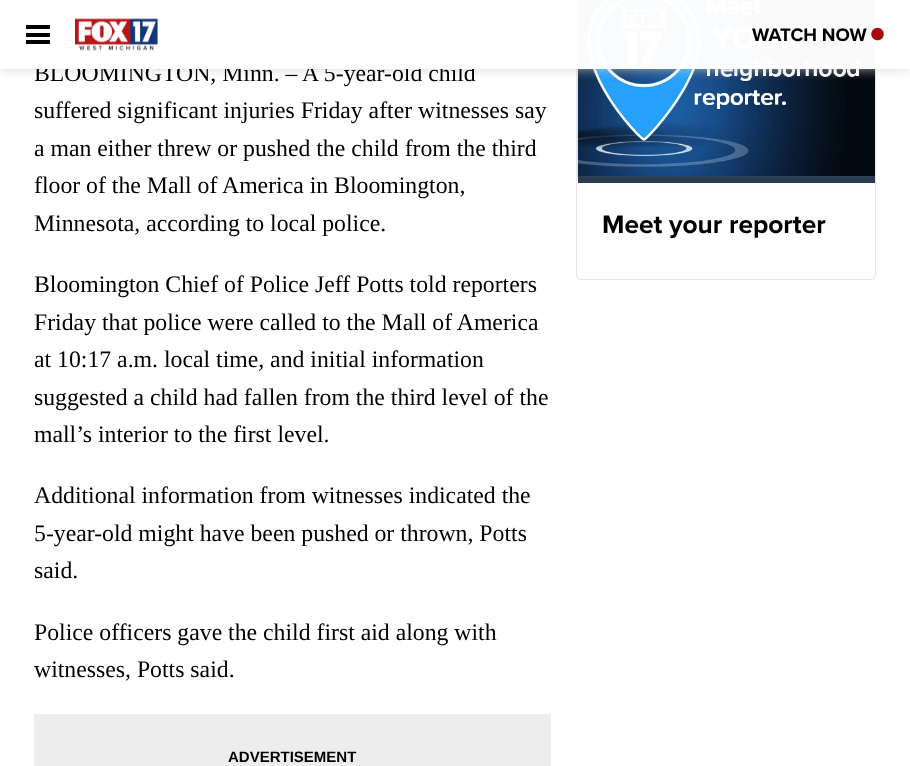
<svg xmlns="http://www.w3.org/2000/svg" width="910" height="766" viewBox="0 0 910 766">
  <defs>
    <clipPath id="clip1"><path d="M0 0H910V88H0ZM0 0H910V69H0Z" clip-rule="evenodd"/></clipPath>
  </defs>
  <rect width="100%" height="100%" fill="rgb(255,255,255)"/>
  <rect x="576.5" y="-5.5" width="299" height="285" rx="4.5" fill="none" stroke="rgb(231,231,231)"/>
  <image x="577" y="0" width="298" height="178" href="pic3.png"/>
  <g clip-path="url(#clip1)">
    <rect x="0" y="0" width="910" height="69" fill="rgba(204,204,204,0.8)" filter="blur(6px)"/>
  </g>
  <text x="34" y="81" font-family="Liberation Serif" font-size="23.75" fill="rgb(0,0,0)">BLOOMINGTON, Minn. – A 5-year-old child</text>
  <rect x="0" y="0" width="910" height="69" fill="rgba(255,255,255,0.98)"/>
  <rect x="26" y="25" width="24" height="4" fill="rgb(0,0,0)"/>
  <rect x="26" y="33" width="24" height="4" fill="rgb(0,0,0)"/>
  <rect x="26" y="40" width="24" height="4" fill="rgb(0,0,0)"/>
  <image x="75" y="18" width="83" height="33" href="pic1.png"/>
  <text x="752" y="41" font-family="Proxima Nova" font-size="18.75" font-weight="bold" fill="rgb(0,0,0)">WATCH NOW</text>
  <image x="871" y="27" width="13" height="14" href="pic2.png"/>
  <g font-family="Liberation Serif" font-size="23.75" fill="rgb(0,0,0)">
    <text>
      <tspan x="34" y="118">suffered significant injuries Friday after witnesses say</tspan>
      <tspan x="34" y="156">a man either threw or pushed the child from the third</tspan>
      <tspan x="34" y="193">floor of the Mall of America in Bloomington,</tspan>
      <tspan x="34" y="231">Minnesota, according to local police.</tspan>
    </text>
    <text>
      <tspan x="34" y="292">Bloomington Chief of Police Jeff Potts told reporters</tspan>
      <tspan x="34" y="330">Friday that police were called to the Mall of America</tspan>
      <tspan x="34" y="367">at 10:17 a.m. local time, and initial information</tspan>
      <tspan x="34" y="405">suggested a child had fallen from the third level of the</tspan>
      <tspan x="34" y="442">mall’s interior to the first level.</tspan>
    </text>
    <text>
      <tspan x="34" y="503">Additional information from witnesses indicated the</tspan>
      <tspan x="34" y="541">5-year-old might have been pushed or thrown, Potts</tspan>
      <tspan x="34" y="578">said.</tspan>
    </text>
    <text>
      <tspan x="34" y="640">Police officers gave the child first aid along with</tspan>
      <tspan x="34" y="677">witnesses, Potts said.</tspan>
    </text>
  </g>
  <rect x="34" y="714" width="517" height="52" fill="rgb(237,237,237)"/>
  <text x="228" y="762" font-family="Liberation Sans" font-size="15" font-weight="bold" fill="rgb(0,0,0)">ADVERTISEMENT</text>
  <rect x="578" y="176" width="297" height="7" fill="rgb(42,60,79)"/>
  <text x="602" y="233" font-family="Proxima Nova" font-size="26.25" font-weight="bold" fill="rgb(0,0,0)">Meet your reporter</text>
</svg>
